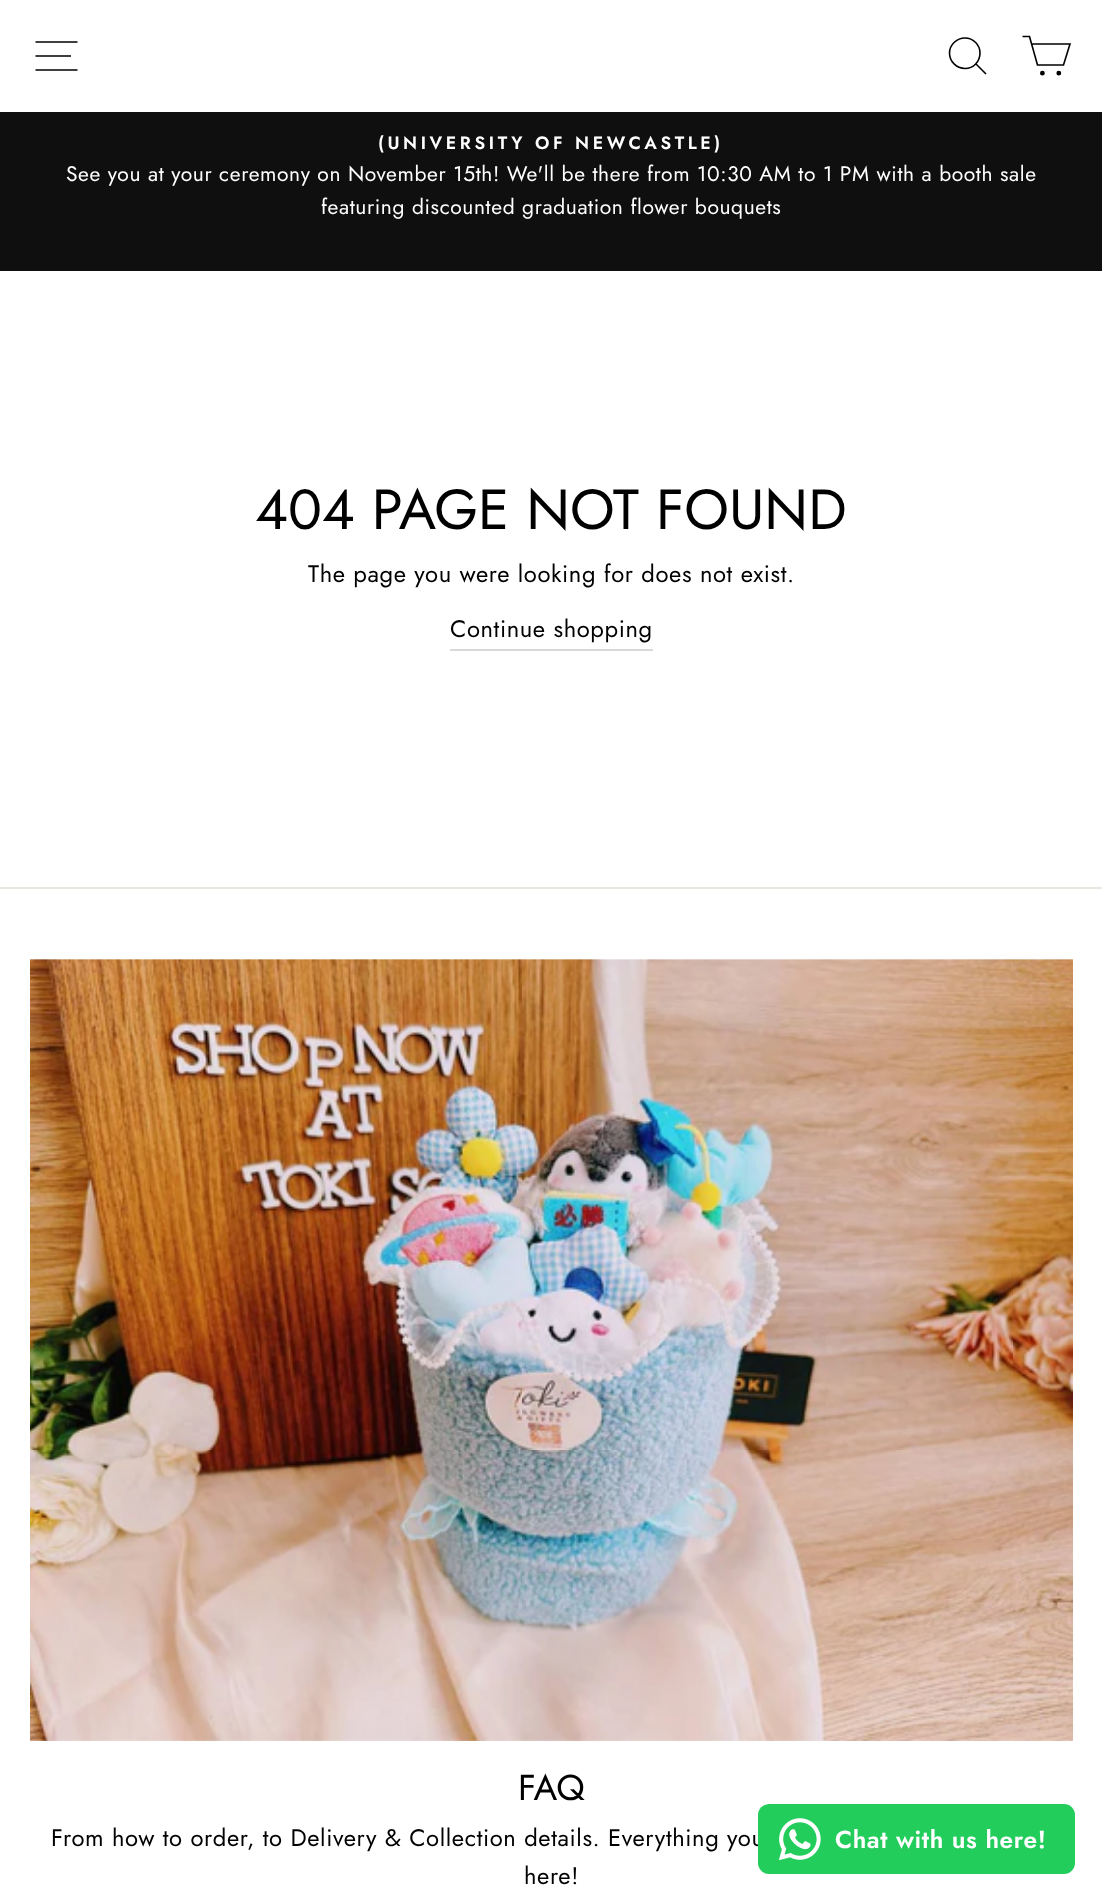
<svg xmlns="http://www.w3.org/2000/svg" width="1102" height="1901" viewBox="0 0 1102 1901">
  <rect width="100%" height="100%" fill="rgb(255,255,255)"/>
  <path d="M35.5 42H77.5M35.5 56H71M35.5 70H77.5" fill="none" stroke="rgb(0,0,0)" stroke-width="1.6"/>
  <path d="M980 53C980 61.5 973.5 68.5 965 68.5C956.5 68.5 949.5 61.5 949.5 53C949.5 45 956.5 38 965 38C973.5 38 980 45 980 53ZM986 74L976 64" fill="none" stroke="rgb(0,0,0)" stroke-width="1.6"/>
  <path d="M1031.5 44H1070L1063.5 65H1037.5L1029.5 36.5H1022.5" fill="none" stroke="rgb(0,0,0)" stroke-width="1.6"/>
  <circle cx="1042.4" cy="73.2" r="1.6" fill="rgb(0,0,0)" stroke="rgb(0,0,0)" stroke-width="1.6"/>
  <circle cx="1058.8" cy="73.2" r="1.6" fill="rgb(0,0,0)" stroke="rgb(0,0,0)" stroke-width="1.6"/>
  <rect x="0" y="112" width="1102" height="159" fill="rgb(15,15,15)"/>
  <text x="378" y="149" font-family="Jost" font-size="17.8" font-weight="600" letter-spacing="3.6" fill="rgb(255,255,255)">(UNIVERSITY OF NEWCASTLE)</text>
  <g font-family="Jost" font-size="21" letter-spacing="0.6" fill="rgb(255,255,255)">
    <text x="66" y="181">See you at your ceremony on November 15th! We'll be there from 10:30 AM to 1 PM with a booth sale</text>
    <text x="321" y="214">featuring discounted graduation flower bouquets</text>
  </g>
  <text x="255" y="529" font-family="Jost" font-size="56.5" fill="rgb(0,0,0)">404 PAGE NOT FOUND</text>
  <text x="308" y="582" font-family="Jost" font-size="23.8" letter-spacing="0.6" fill="rgb(0,0,0)">The page you were looking for does not exist.</text>
  <rect x="450" y="649" width="203" height="2" fill="rgb(217,217,217)"/>
  <text x="450" y="637" font-family="Jost" font-size="23.8" letter-spacing="0.6" fill="rgb(0,0,0)">Continue shopping</text>
  <rect x="0" y="887" width="1102" height="2" fill="rgb(232,232,225)"/>
  <image x="30" y="959" width="1043" height="782" href="pic1.png"/>
  <text x="518" y="1800" font-family="Jost" font-size="36" fill="rgb(0,0,0)">FAQ</text>
  <g font-family="Jost" font-size="23.8" letter-spacing="0.6" fill="rgb(0,0,0)">
    <text x="51" y="1846">From how to order, to Delivery &amp; Collection details. Everything you</text>
    <text x="524" y="1884">here!</text>
  </g>
  <rect x="758" y="1804" width="317" height="70" rx="11" fill="rgb(34,205,91)"/>
  <image x="779" y="1818" width="42" height="42" href="pic2.png"/>
  <text x="835" y="1848" font-family="Jost" font-size="24.5" font-weight="600" letter-spacing="0.6" fill="rgb(255,255,255)">Chat with us here!</text>
</svg>
